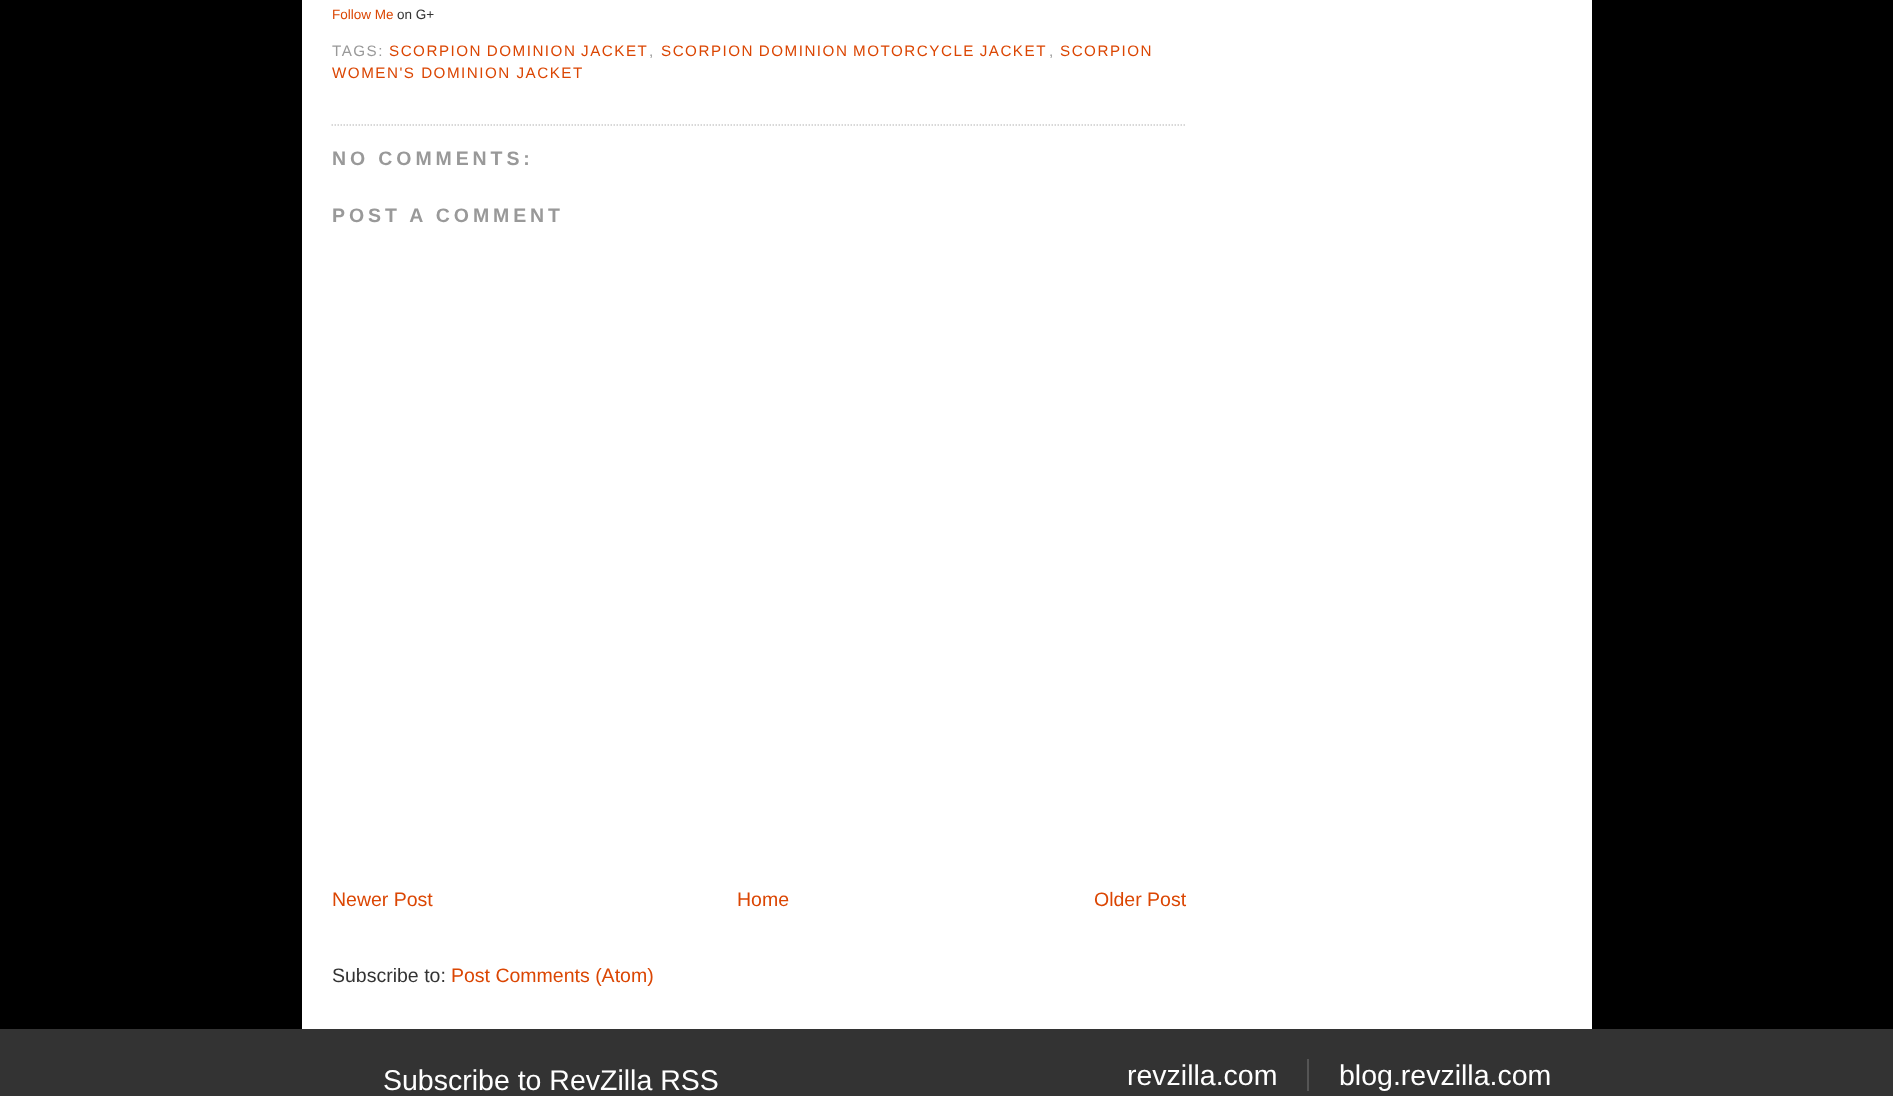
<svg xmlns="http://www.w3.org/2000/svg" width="1893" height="1096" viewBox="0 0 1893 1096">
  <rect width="100%" height="100%" fill="rgb(0,0,0)"/>
  <rect x="302" y="0" width="1290" height="1029" fill="rgb(255,255,255)"/>
  <path d="M331.5 125H1186.5" fill="none" stroke="rgb(204,204,204)" stroke-width="1.5" stroke-dasharray="1.5 1.5"/>
  <text x="332" y="19" font-family="Liberation Sans" font-size="13.5" fill="rgb(219,70,3)">Follow Me</text>
  <text x="397" y="19" font-family="Liberation Sans" font-size="13.5" fill="rgb(51,51,51)">on G+</text>
  <text x="332" y="56" font-family="Liberation Sans" font-size="15.2" letter-spacing="1.5" fill="rgb(153,153,153)">TAGS:</text>
  <text x="389" y="56" word-spacing="-1" font-family="Liberation Sans" font-size="15.2" letter-spacing="1.5" fill="rgb(219,70,3)">SCORPION DOMINION JACKET</text>
  <text x="649" y="56" font-family="Liberation Sans" font-size="15.2" letter-spacing="1.5" fill="rgb(153,153,153)">,</text>
  <text x="661" y="56" word-spacing="-1" font-family="Liberation Sans" font-size="15.2" letter-spacing="1.5" fill="rgb(219,70,3)">SCORPION DOMINION MOTORCYCLE JACKET</text>
  <text x="1049" y="56" font-family="Liberation Sans" font-size="15.2" letter-spacing="1.5" fill="rgb(153,153,153)">,</text>
  <g font-family="Liberation Sans" font-size="15.2" letter-spacing="1.5" fill="rgb(219,70,3)">
    <text x="1060" y="56">SCORPION</text>
    <text x="332" y="78">WOMEN'S DOMINION JACKET</text>
  </g>
  <g font-family="Liberation Sans" font-size="19.5" font-weight="bold" letter-spacing="3.9" fill="rgb(153,153,153)">
    <text x="332" y="165">NO COMMENTS:</text>
    <text x="332" y="222">POST A COMMENT</text>
  </g>
  <g font-family="Liberation Sans" font-size="19.5" fill="rgb(219,70,3)">
    <text x="332" y="906">Newer Post</text>
    <text x="737" y="906">Home</text>
    <text x="1094" y="906">Older Post</text>
  </g>
  <text x="332" y="982" font-family="Liberation Sans" font-size="19.5" fill="rgb(51,51,51)">Subscribe to:</text>
  <text x="451" y="982" font-family="Liberation Sans" font-size="19.5" fill="rgb(219,70,3)">Post Comments (Atom)</text>
  <rect x="0" y="1029" width="1893" height="67" fill="rgb(51,51,51)"/>
  <g font-family="Liberation Sans" font-size="28.5" fill="rgb(255,255,255)">
    <text x="383" y="1090">Subscribe to RevZilla RSS</text>
    <text x="1127" y="1085">revzilla.com</text>
  </g>
  <rect x="1307" y="1059" width="2" height="32" fill="rgb(85,85,85)"/>
  <text x="1339" y="1085" font-family="Liberation Sans" font-size="28.5" fill="rgb(255,255,255)">blog.revzilla.com</text>
</svg>
